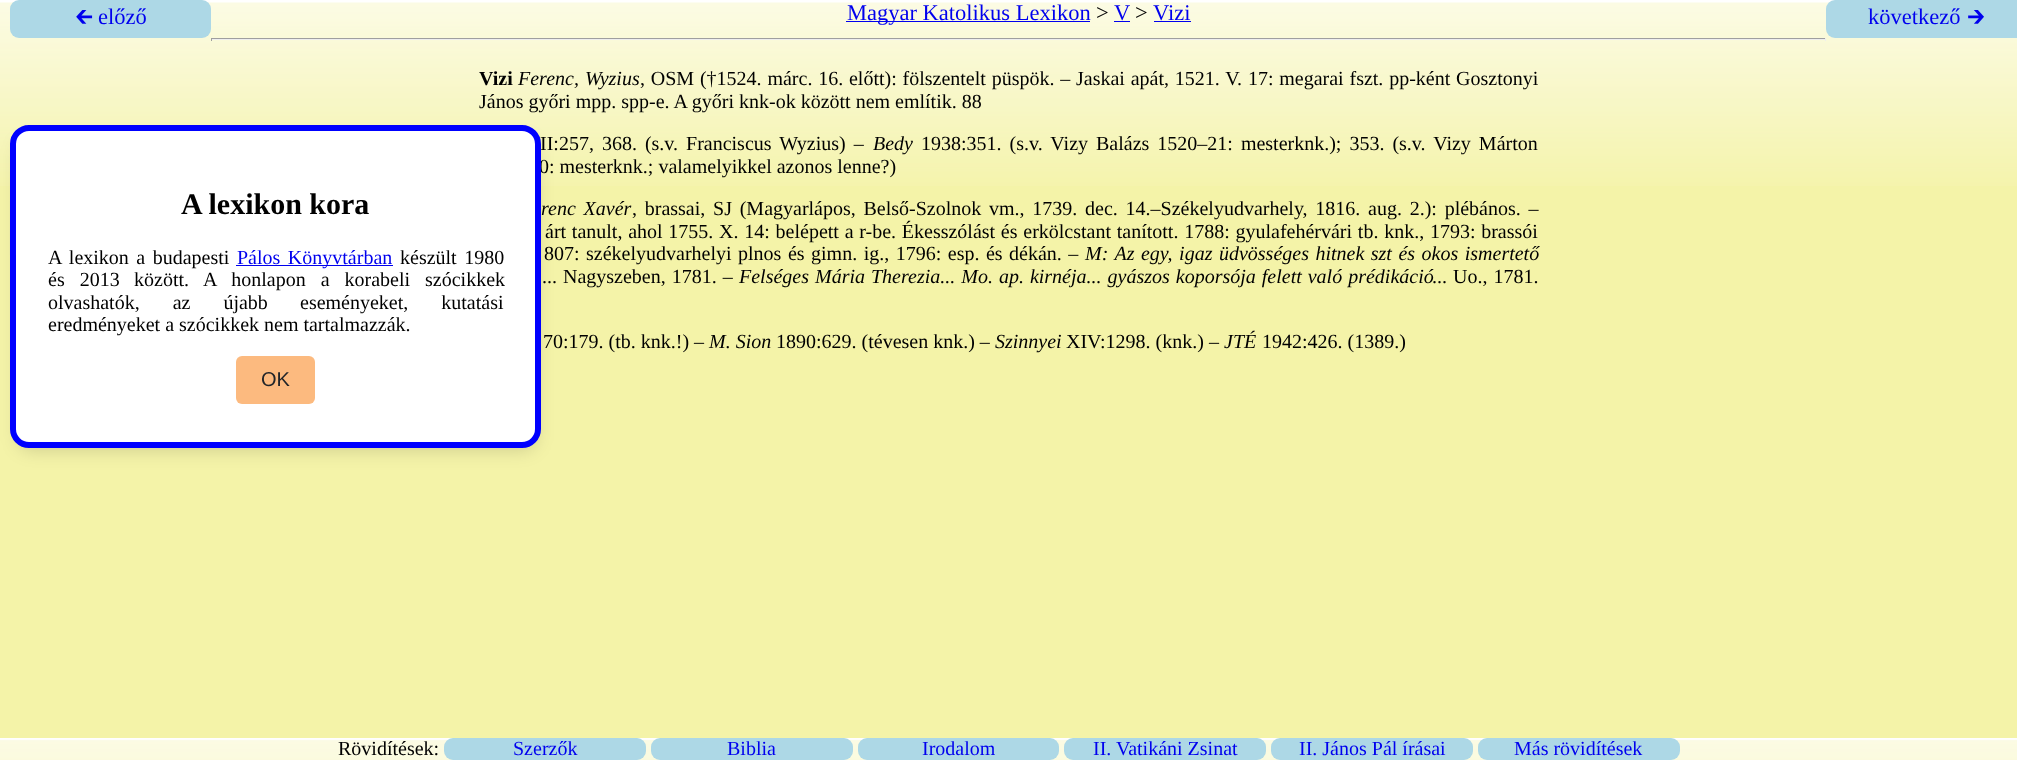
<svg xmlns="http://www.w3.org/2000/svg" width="2017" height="760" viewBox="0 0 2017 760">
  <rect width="100%" height="100%" fill="rgb(244,243,168)"/>
  <image x="0" y="0" width="2017" height="186" href="pic1.png"/>
  <rect x="10" y="0" width="201" height="38" rx="9" fill="rgb(173,216,230)"/>
  <text x="75" y="24" font-family="'Noto Sans Symbols 2'" font-size="22.5" fill="rgb(0,0,238)">🡰</text>
  <text x="98" y="24" font-family="Liberation Serif" font-size="22.5" fill="rgb(0,0,238)">előző</text>
  <rect x="846" y="21" width="244" height="1" fill="rgb(0,0,238)"/>
  <text x="847" y="20" font-family="Liberation Serif" font-size="22.5" fill="rgb(0,0,238)">Magyar Katolikus Lexikon</text>
  <text x="1096" y="20" font-family="Liberation Serif" font-size="22.5" fill="rgb(0,0,0)">&gt;</text>
  <text x="1114" y="20" font-family="Liberation Serif" font-size="22.5" fill="rgb(0,0,238)">V</text>
  <rect x="1114" y="21" width="16" height="1" fill="rgb(0,0,238)"/>
  <text x="1135" y="20" font-family="Liberation Serif" font-size="22.5" fill="rgb(0,0,0)">&gt;</text>
  <text x="1153" y="20" font-family="Liberation Serif" font-size="22.5" fill="rgb(0,0,238)">Vizi</text>
  <rect x="1154" y="21" width="37" height="1" fill="rgb(0,0,238)"/>
  <rect x="211" y="38" width="1615" height="1" fill="rgb(159,159,159)"/>
  <rect x="1825" y="38" width="1" height="3" fill="rgb(238,238,238)"/>
  <rect x="211" y="39" width="1615" height="1" fill="rgb(238,238,238)"/>
  <rect x="211" y="38" width="1" height="3" fill="rgb(159,159,159)"/>
  <rect x="1826" y="0" width="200" height="38" rx="9" fill="rgb(173,216,230)"/>
  <text x="1868" y="24" font-family="Liberation Serif" font-size="22.5" fill="rgb(0,0,238)">következő</text>
  <text x="1967" y="24" font-family="'Noto Sans Symbols 2'" font-size="22.5" fill="rgb(0,0,238)">🡲</text>
  <rect x="18" y="140" width="518" height="310" rx="13" fill="rgba(0,0,0,0.15)" filter="blur(9px)"/>
  <g font-family="Liberation Serif" font-size="20" fill="rgb(0,0,0)">
    <text x="540" y="150" word-spacing="3">II:257, 368. (s.v. Franciscus Wyzius) –</text>
    <text x="539" y="173">0: mesterknk.; valamelyikkel azonos lenne?)</text>
  </g>
  <rect x="13" y="128" width="525" height="317" rx="16" fill="rgb(255,255,255)" stroke="rgb(0,0,255)" stroke-width="6"/>
  <text x="181" y="214" font-family="Liberation Serif" font-size="30" font-weight="bold" fill="rgb(0,0,0)">A lexikon kora</text>
  <text x="48" y="264" word-spacing="2.5" font-family="Liberation Serif" font-size="20" fill="rgb(0,0,0)">A lexikon a budapesti</text>
  <rect x="236" y="265" width="157" height="1" fill="rgb(0,0,238)"/>
  <text x="237" y="264" word-spacing="2.5" font-family="Liberation Serif" font-size="20" fill="rgb(0,0,238)">Pálos Könyvtárban</text>
  <g font-family="Liberation Serif" font-size="20" fill="rgb(0,0,0)">
    <text x="400" y="264" word-spacing="2.5">készült 1980</text>
    <text x="48" y="286" word-spacing="10">és 2013</text>
    <text x="134" y="286" word-spacing="10">között. A honlapon a korabeli szócikkek</text>
    <text x="48" y="309" word-spacing="28">olvashatók, az újabb</text>
    <text x="300" y="309" word-spacing="28">eseményeket, kutatási</text>
    <text x="48" y="331">eredményeket a szócikkek nem tartalmazzák.</text>
  </g>
  <rect x="236" y="356" width="79" height="48" rx="6" fill="rgb(252,186,127)"/>
  <text x="261" y="386" font-family="Liberation Sans" font-size="20" fill="rgb(33,37,41)">OK</text>
  <text x="479" y="85" font-family="Liberation Serif" font-size="20" font-weight="bold" fill="rgb(0,0,0)">Vizi</text>
  <text x="518" y="85" word-spacing="1" font-family="Liberation Serif" font-size="20" font-style="italic" fill="rgb(0,0,0)">Ferenc, Wyzius</text>
  <g font-family="Liberation Serif" font-size="20" fill="rgb(0,0,0)">
    <text x="640" y="85" word-spacing="0.8">, OSM (†1524. márc. 16. előtt): fölszentelt püspök. – Jaskai apát, 1521. V. 17: megarai fszt. pp-ként Gosztonyi</text>
    <text x="479" y="108">János győri mpp. spp-e. A győri knk-ok között nem említik. 88</text>
  </g>
  <text x="873" y="150" font-family="Liberation Serif" font-size="20" font-style="italic" fill="rgb(0,0,0)">Bedy</text>
  <text x="921" y="150" word-spacing="3" font-family="Liberation Serif" font-size="20" fill="rgb(0,0,0)">1938:351. (s.v. Vizy Balázs 1520–21: mesterknk.); 353. (s.v. Vizy Márton</text>
  <text x="541" y="215" word-spacing="2.75" font-family="Liberation Serif" font-size="20" font-style="italic" fill="rgb(0,0,0)">renc Xavér</text>
  <g font-family="Liberation Serif" font-size="20" fill="rgb(0,0,0)">
    <text x="632" y="215" word-spacing="2.75">, brassai, SJ (Magyarlápos, Belső-Szolnok vm., 1739. dec. 14.–Székelyudvarhely, 1816. aug. 2.): plébános. –</text>
    <text x="545" y="238" word-spacing="0.75">árt tanult, ahol 1755. X. 14: belépett a r-be. Ékesszólást és erkölcstant tanított. 1788: gyulafehérvári tb. knk., 1793: brassói</text>
    <text x="544" y="260" word-spacing="1.5">807: székelyudvarhelyi plnos és gimn. ig., 1796: esp. és dékán. –</text>
  </g>
  <text x="1085" y="260" word-spacing="1.5" font-family="Liberation Serif" font-size="20" font-style="italic" fill="rgb(0,0,0)">M: Az egy, igaz üdvösséges hitnek szt és okos ismertető</text>
  <text x="542" y="283" word-spacing="1" font-family="Liberation Serif" font-size="20" fill="rgb(0,0,0)">... Nagyszeben, 1781. –</text>
  <text x="739" y="283" word-spacing="1" font-family="Liberation Serif" font-size="20" font-style="italic" fill="rgb(0,0,0)">Felséges Mária Therezia... Mo. ap. kirnéja... gyászos koporsója felett való prédikáció</text>
  <g font-family="Liberation Serif" font-size="20" fill="rgb(0,0,0)">
    <text x="1432" y="283" word-spacing="1">... Uo., 1781.</text>
    <text x="543" y="348">70:179. (tb. knk.!) –</text>
  </g>
  <text x="709" y="348" font-family="Liberation Serif" font-size="20" font-style="italic" fill="rgb(0,0,0)">M. Sion</text>
  <text x="776" y="348" font-family="Liberation Serif" font-size="20" fill="rgb(0,0,0)">1890:629. (tévesen knk.) –</text>
  <text x="995" y="348" font-family="Liberation Serif" font-size="20" font-style="italic" fill="rgb(0,0,0)">Szinnyei</text>
  <text x="1066" y="348" font-family="Liberation Serif" font-size="20" fill="rgb(0,0,0)">XIV:1298. (knk.) –</text>
  <text x="1224" y="348" font-family="Liberation Serif" font-size="20" font-style="italic" fill="rgb(0,0,0)">JTÉ</text>
  <text x="1262" y="348" font-family="Liberation Serif" font-size="20" fill="rgb(0,0,0)">1942:426. (1389.)</text>
  <image x="0" y="738" width="2017" height="22" href="pic2.png"/>
  <text x="338" y="755" font-family="Liberation Serif" font-size="20" fill="rgb(0,0,0)">Rövidítések:</text>
  <rect x="444" y="738" width="202" height="22" rx="9" fill="rgb(173,216,230)"/>
  <text x="513" y="755" font-family="Liberation Serif" font-size="20" fill="rgb(0,0,238)">Szerzők</text>
  <rect x="651" y="738" width="202" height="22" rx="9" fill="rgb(173,216,230)"/>
  <text x="727" y="755" font-family="Liberation Serif" font-size="20" fill="rgb(0,0,238)">Biblia</text>
  <rect x="858" y="738" width="201" height="22" rx="9" fill="rgb(173,216,230)"/>
  <text x="922" y="755" font-family="Liberation Serif" font-size="20" fill="rgb(0,0,238)">Irodalom</text>
  <rect x="1064" y="738" width="202" height="22" rx="9" fill="rgb(173,216,230)"/>
  <text x="1093" y="755" font-family="Liberation Serif" font-size="20" fill="rgb(0,0,238)">II. Vatikáni Zsinat</text>
  <rect x="1271" y="738" width="202" height="22" rx="9" fill="rgb(173,216,230)"/>
  <text x="1299" y="755" font-family="Liberation Serif" font-size="20" fill="rgb(0,0,238)">II. János Pál írásai</text>
  <rect x="1478" y="738" width="202" height="22" rx="9" fill="rgb(173,216,230)"/>
  <text x="1514" y="755" font-family="Liberation Serif" font-size="20" fill="rgb(0,0,238)">Más rövidítések</text>
</svg>
